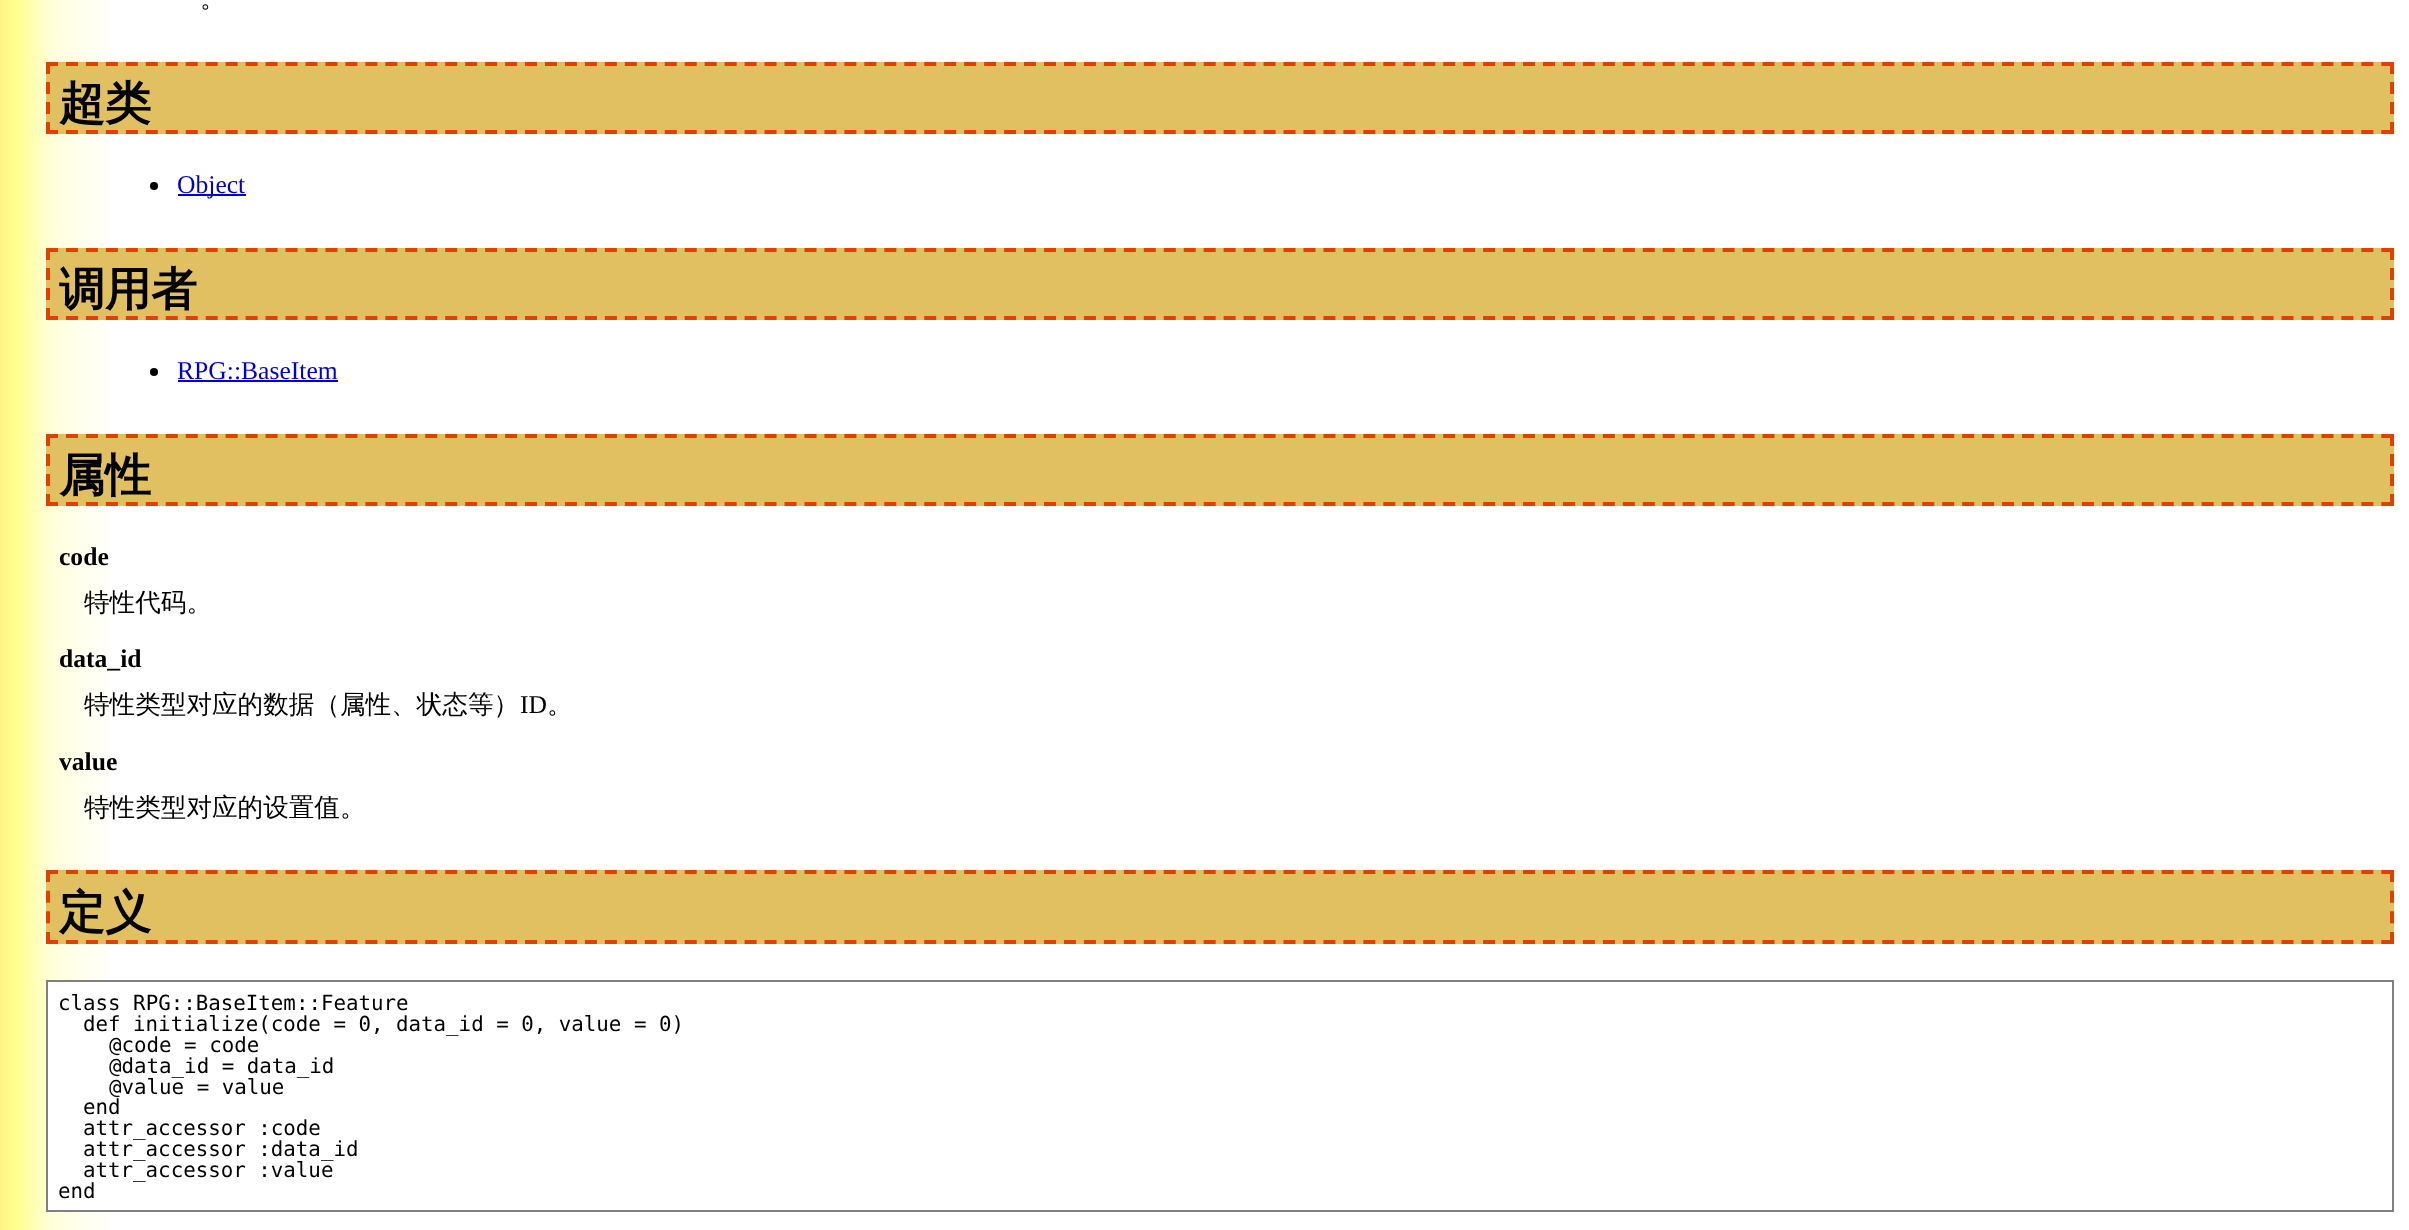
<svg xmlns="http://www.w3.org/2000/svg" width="2409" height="1230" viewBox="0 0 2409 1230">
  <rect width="100%" height="100%" fill="rgb(255,255,255)"/>
  <image x="0" y="0" width="109" height="1230" href="pic1.png"/>
  <text x="200" y="7" font-family="WenQuanYi Zen Hei" font-size="25.6" font-weight="500" fill="rgb(0,0,0)">。</text>
  <rect x="46" y="62" width="2348" height="72" fill="rgb(224,192,96)"/>
  <path d="M46 64H2394" fill="none" stroke="rgb(224,64,0)" stroke-width="4" stroke-dasharray="12 7.96"/>
  <path d="M2392 62V134" fill="none" stroke="rgb(224,64,0)" stroke-width="4" stroke-dasharray="12 8"/>
  <path d="M46 132H2394" fill="none" stroke="rgb(224,64,0)" stroke-width="4" stroke-dasharray="12 7.96"/>
  <path d="M48 62V134" fill="none" stroke="rgb(224,64,0)" stroke-width="4" stroke-dasharray="12 8"/>
  <text x="59" y="119" font-family="WenQuanYi Zen Hei" font-size="46" font-weight="bold" fill="rgb(0,0,0)">超类</text>
  <circle cx="154" cy="186" r="4" fill="rgb(0,0,0)"/>
  <rect x="178" y="194" width="68" height="2" fill="rgb(0,0,204)"/>
  <text x="177" y="193" font-family="Liberation Serif" font-size="25.6" fill="rgb(0,0,204)">Object</text>
  <rect x="46" y="248" width="2348" height="72" fill="rgb(224,192,96)"/>
  <path d="M46 250H2394" fill="none" stroke="rgb(224,64,0)" stroke-width="4" stroke-dasharray="12 7.96"/>
  <path d="M2392 248V320" fill="none" stroke="rgb(224,64,0)" stroke-width="4" stroke-dasharray="12 8"/>
  <path d="M46 318H2394" fill="none" stroke="rgb(224,64,0)" stroke-width="4" stroke-dasharray="12 7.96"/>
  <path d="M48 248V320" fill="none" stroke="rgb(224,64,0)" stroke-width="4" stroke-dasharray="12 8"/>
  <text x="59" y="305" font-family="WenQuanYi Zen Hei" font-size="46" font-weight="bold" fill="rgb(0,0,0)">调用者</text>
  <circle cx="154" cy="372" r="4" fill="rgb(0,0,0)"/>
  <text x="177" y="379" font-family="Liberation Serif" font-size="25.6" fill="rgb(0,0,204)">RPG::BaseItem</text>
  <rect x="178" y="380" width="160" height="2" fill="rgb(0,0,204)"/>
  <rect x="46" y="434" width="2348" height="72" fill="rgb(224,192,96)"/>
  <path d="M46 436H2394" fill="none" stroke="rgb(224,64,0)" stroke-width="4" stroke-dasharray="12 7.96"/>
  <path d="M2392 434V506" fill="none" stroke="rgb(224,64,0)" stroke-width="4" stroke-dasharray="12 8"/>
  <path d="M46 504H2394" fill="none" stroke="rgb(224,64,0)" stroke-width="4" stroke-dasharray="12 7.96"/>
  <path d="M48 434V506" fill="none" stroke="rgb(224,64,0)" stroke-width="4" stroke-dasharray="12 8"/>
  <text x="59" y="491" font-family="WenQuanYi Zen Hei" font-size="46" font-weight="bold" fill="rgb(0,0,0)">属性</text>
  <text x="59" y="565" font-family="Liberation Serif" font-size="25.6" font-weight="bold" fill="rgb(0,0,0)">code</text>
  <text x="84" y="611" font-family="WenQuanYi Zen Hei" font-size="25.6" font-weight="500" fill="rgb(0,0,0)">特性代码。</text>
  <text x="59" y="667" font-family="Liberation Serif" font-size="25.6" font-weight="bold" fill="rgb(0,0,0)">data_id</text>
  <text x="84" y="713" font-family="WenQuanYi Zen Hei" font-size="25.6" font-weight="500" fill="rgb(0,0,0)">特性类型对应的数据（属性、状态等）</text>
  <text x="520" y="713" font-family="Liberation Serif" font-size="25.6" fill="rgb(0,0,0)">ID</text>
  <text x="547" y="713" font-family="WenQuanYi Zen Hei" font-size="25.6" font-weight="500" fill="rgb(0,0,0)">。</text>
  <text x="59" y="770" font-family="Liberation Serif" font-size="25.6" font-weight="bold" fill="rgb(0,0,0)">value</text>
  <text x="84" y="816" font-family="WenQuanYi Zen Hei" font-size="25.6" font-weight="500" fill="rgb(0,0,0)">特性类型对应的设置值。</text>
  <rect x="46" y="870" width="2348" height="74" fill="rgb(224,192,96)"/>
  <path d="M46 872H2394" fill="none" stroke="rgb(224,64,0)" stroke-width="4" stroke-dasharray="12 7.96"/>
  <path d="M2392 870V944" fill="none" stroke="rgb(224,64,0)" stroke-width="4" stroke-dasharray="12 8.66"/>
  <path d="M46 942H2394" fill="none" stroke="rgb(224,64,0)" stroke-width="4" stroke-dasharray="12 7.96"/>
  <path d="M48 870V944" fill="none" stroke="rgb(224,64,0)" stroke-width="4" stroke-dasharray="12 8.66"/>
  <text x="59" y="928" font-family="WenQuanYi Zen Hei" font-size="46" font-weight="bold" fill="rgb(0,0,0)">定义</text>
  <rect x="48" y="982" width="61" height="228" fill="rgb(255,255,255)"/>
  <rect x="47" y="981" width="2346" height="230" fill="none" stroke="rgb(128,128,128)" stroke-width="2"/>
  <g font-family="DejaVu Sans Mono" font-size="20.8" fill="rgb(0,0,0)">
    <text x="58" y="1010">class RPG::BaseItem::Feature</text>
    <text x="83" y="1031">def initialize(code = 0, data_id = 0, value = 0)</text>
    <text>
      <tspan x="109" y="1052">@code = code</tspan>
      <tspan x="109" y="1073">@data_id = data_id</tspan>
      <tspan x="109" y="1094">@value = value</tspan>
    </text>
    <text>
      <tspan x="83" y="1114">end</tspan>
      <tspan x="83" y="1135">attr_accessor :code</tspan>
      <tspan x="83" y="1156">attr_accessor :data_id</tspan>
      <tspan x="83" y="1177">attr_accessor :value</tspan>
    </text>
    <text x="58" y="1198">end</text>
  </g>
</svg>
